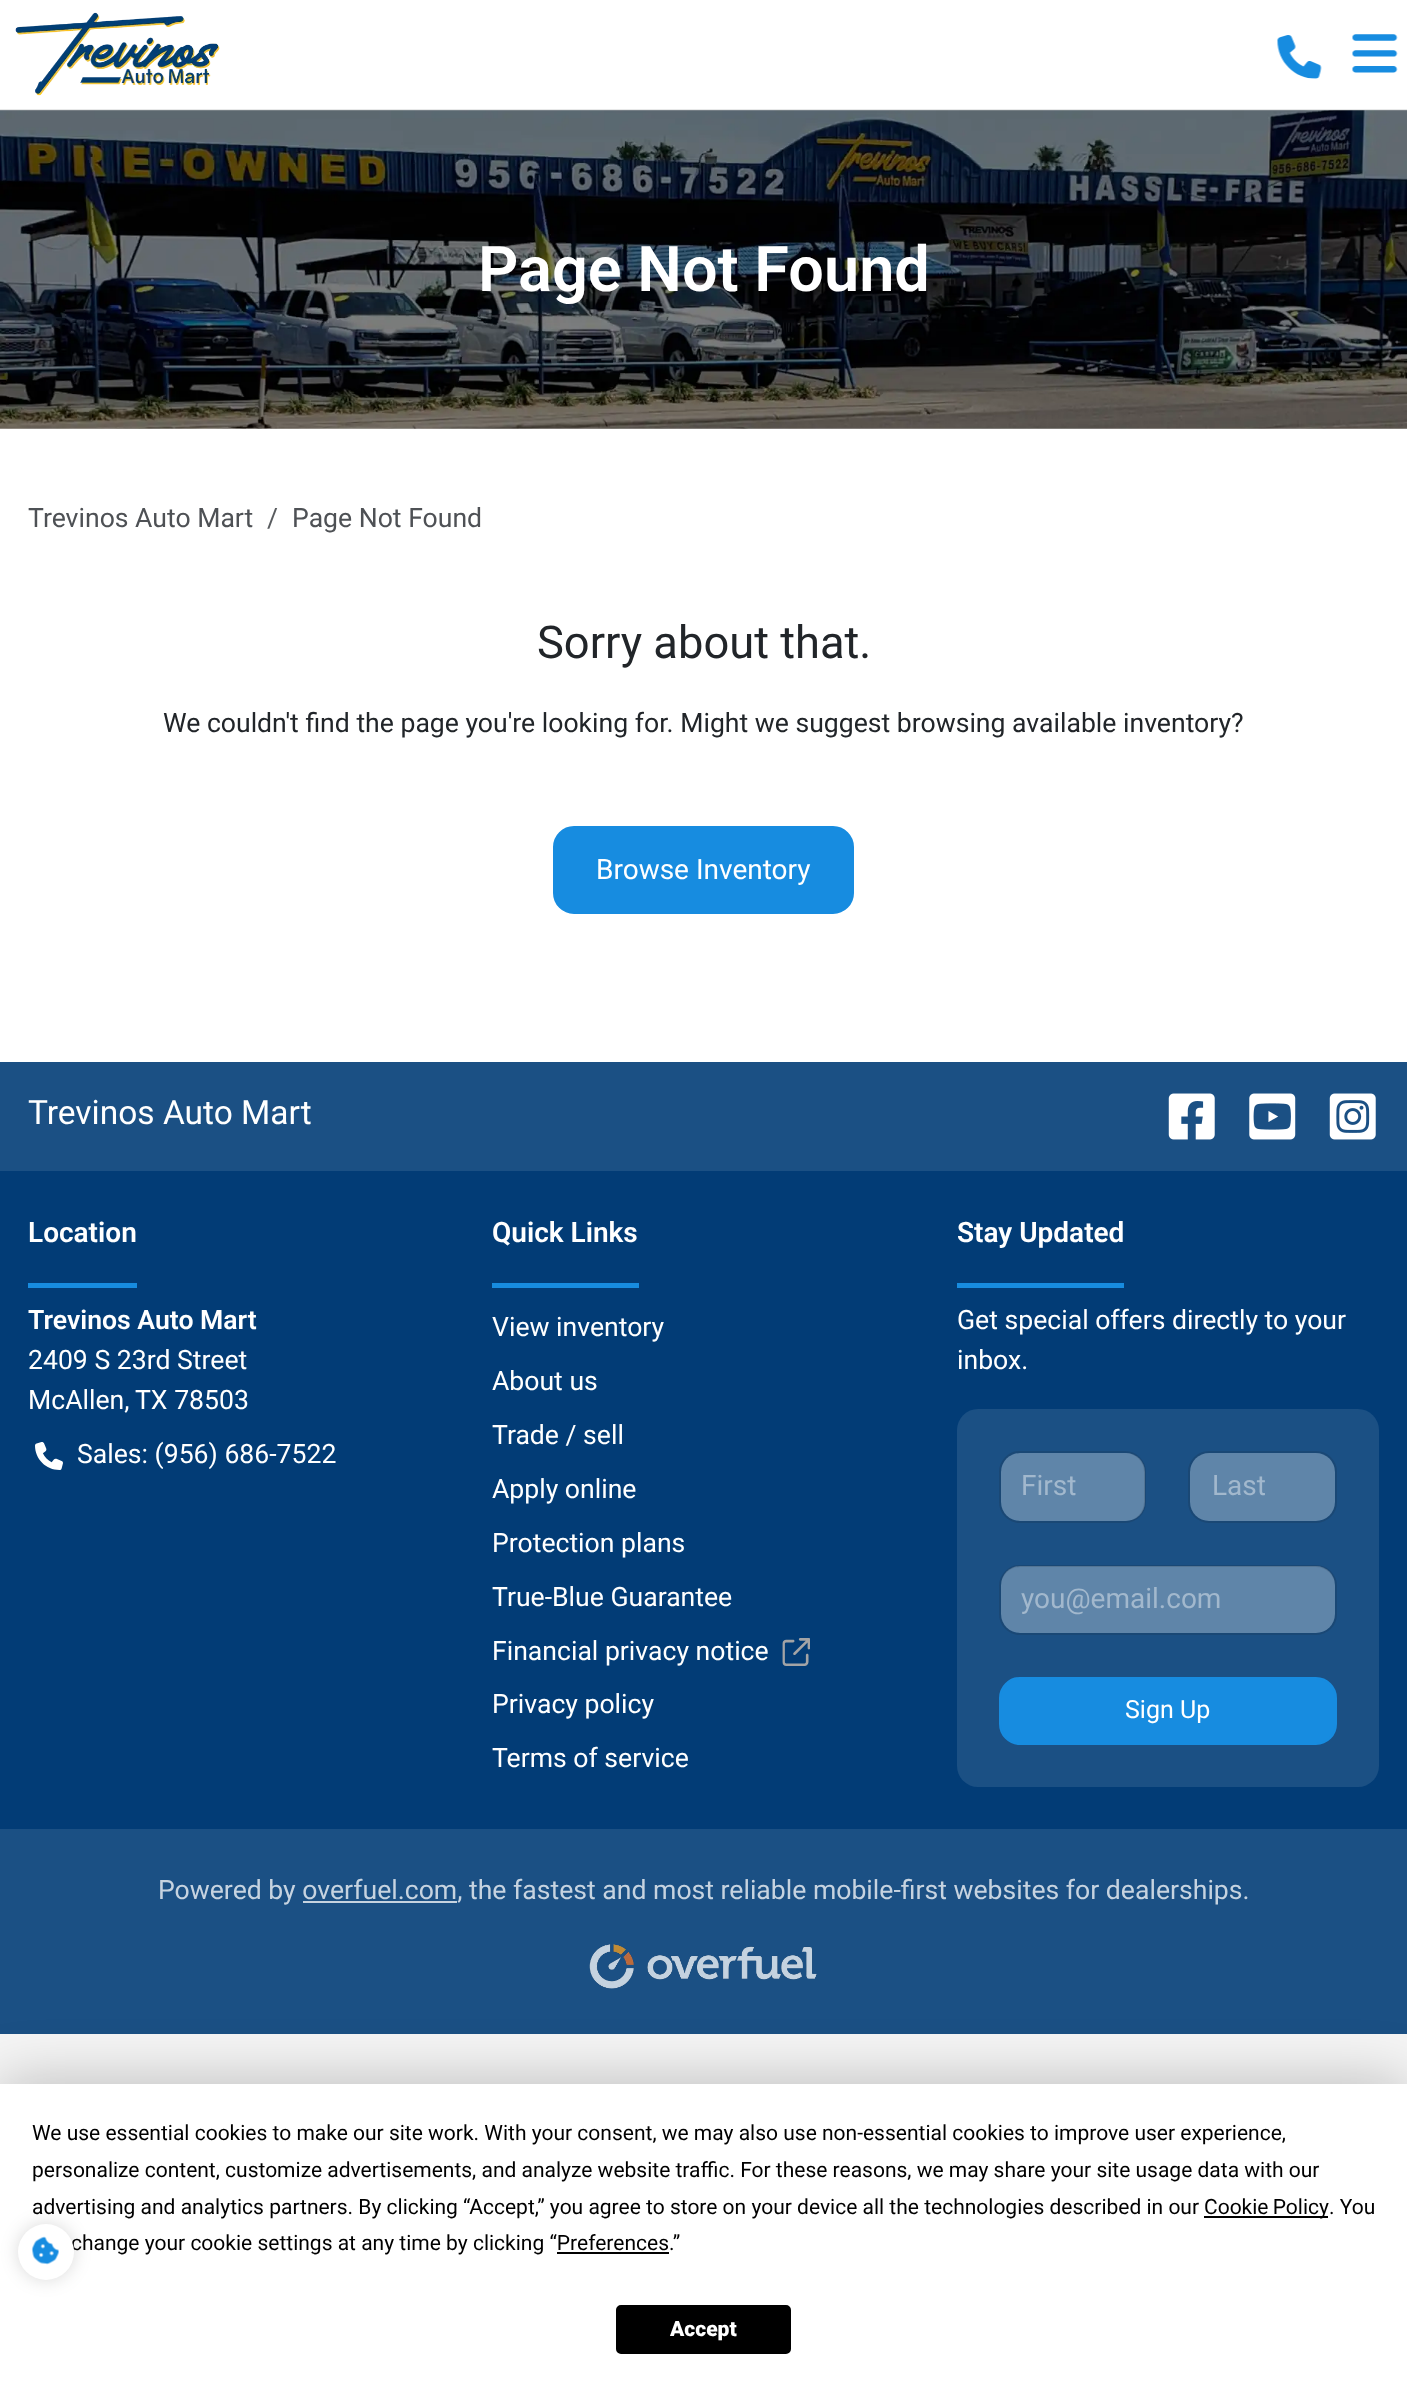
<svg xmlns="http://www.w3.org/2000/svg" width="1407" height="2385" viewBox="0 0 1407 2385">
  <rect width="100%" height="100%" fill="rgb(245,245,245)"/>
  <rect x="0" y="0" width="1407" height="110" fill="rgb(255,255,255)"/>
  <image x="0" y="110" width="1407" height="319" href="pic4.png"/>
  <rect x="0" y="109" width="1407" height="2" fill="rgba(24,28,33,0.1)"/>
  <image x="15" y="12" width="205" height="84" href="pic1.png"/>
  <image x="1277" y="35" width="45" height="44" href="pic2.png"/>
  <image x="1352" y="34" width="46" height="39" href="pic3.png"/>
  <text x="478" y="291" font-family="Roboto" font-size="63" font-weight="600" fill="rgb(255,255,255)">Page Not Found</text>
  <rect x="0" y="429" width="1407" height="633" fill="rgb(255,255,255)"/>
  <text x="28" y="527" font-family="Roboto" font-size="26.6" fill="rgb(78,81,85)">Trevinos Auto Mart</text>
  <text x="267" y="527" font-family="Roboto" font-size="26.6" fill="rgb(89,92,95)">/</text>
  <text x="292" y="527" font-family="Roboto" font-size="26.6" fill="rgb(78,81,85)">Page Not Found</text>
  <text x="537" y="658" font-family="Roboto" font-size="45.25" fill="rgb(33,37,41)">Sorry about that.</text>
  <text x="163" y="732" font-family="Roboto" font-size="26.6" fill="rgb(33,37,41)">We couldn't find the page you're looking for. Might we suggest browsing available inventory?</text>
  <rect x="554" y="827" width="299" height="86" rx="20" fill="rgb(23,140,224)" stroke="rgb(23,140,224)" stroke-width="2"/>
  <text x="596" y="879" font-family="Roboto" font-size="28" fill="rgb(255,255,255)">Browse Inventory</text>
  <rect x="0" y="1171" width="1407" height="658" fill="rgb(2,60,118)"/>
  <rect x="0" y="1062" width="1407" height="109" fill="rgb(27,80,132)"/>
  <text x="28" y="1124" font-family="Roboto" font-size="33.5" fill="rgb(255,255,255)">Trevinos Auto Mart</text>
  <image x="1168" y="1093" width="47" height="47" href="pic5.png"/>
  <image x="1249" y="1093" width="47" height="47" href="pic6.png"/>
  <image x="1329" y="1093" width="47" height="47" href="pic7.png"/>
  <rect x="28" y="1283" width="109" height="5" fill="rgb(23,140,224)"/>
  <text x="28" y="1242" font-family="Roboto" font-size="28" font-weight="600" fill="rgb(255,255,255)">Location</text>
  <text x="28" y="1329" font-family="Roboto" font-size="26.6" font-weight="600" fill="rgb(255,255,255)">Trevinos Auto Mart</text>
  <g font-family="Roboto" font-size="26.6" fill="rgb(255,255,255)">
    <text>
      <tspan x="28" y="1369">2409 S 23rd Street</tspan>
      <tspan x="28" y="1409">McAllen,</tspan>
    </text>
    <text x="135" y="1409">TX 78503</text>
  </g>
  <image x="35" y="1442" width="28" height="28" href="pic8.png"/>
  <text x="77" y="1463" font-family="Roboto" font-size="26.6" fill="rgb(255,255,255)">Sales: (956) 686-7522</text>
  <rect x="492" y="1283" width="147" height="5" fill="rgb(23,140,224)"/>
  <text x="492" y="1242" font-family="Roboto" font-size="28" font-weight="600" fill="rgb(255,255,255)">Quick Links</text>
  <g font-family="Roboto" font-size="26.6" fill="rgb(255,255,255)">
    <text x="492" y="1336">View inventory</text>
    <text x="492" y="1390">About us</text>
    <text x="492" y="1444">Trade / sell</text>
    <text x="492" y="1498">Apply online</text>
    <text x="492" y="1552">Protection plans</text>
    <text x="492" y="1606">True-Blue Guarantee</text>
    <text x="492" y="1660">Financial privacy notice</text>
  </g>
  <image x="782" y="1638" width="28" height="28" href="pic9.png"/>
  <g font-family="Roboto" font-size="26.6" fill="rgb(255,255,255)">
    <text x="492" y="1713">Privacy policy</text>
    <text x="492" y="1767">Terms of service</text>
  </g>
  <rect x="957" y="1283" width="167" height="5" fill="rgb(23,140,224)"/>
  <text x="957" y="1242" font-family="Roboto" font-size="28" font-weight="600" fill="rgb(255,255,255)">Stay Updated</text>
  <g font-family="Roboto" font-size="26.6" fill="rgb(255,255,255)">
    <text>
      <tspan x="957" y="1329">Get special offers directly to your</tspan>
      <tspan x="957" y="1369">inbox.</tspan>
    </text>
  </g>
  <rect x="957" y="1409" width="422" height="378" rx="21" fill="rgb(27,80,132)"/>
  <rect x="1001" y="1453" width="144" height="68" rx="19" fill="rgb(95,133,169)"/>
  <rect x="1000" y="1452" width="145" height="70" rx="20" fill="none" stroke="rgba(24,28,33,0.15)" stroke-width="2"/>
  <text x="1021" y="1495" font-family="Roboto" font-size="28" fill="rgb(162,184,205)">First</text>
  <rect x="1190" y="1453" width="145" height="68" rx="19" fill="rgb(95,133,169)"/>
  <rect x="1189" y="1452" width="147" height="70" rx="20" fill="none" stroke="rgba(24,28,33,0.15)" stroke-width="2"/>
  <text x="1212" y="1495" font-family="Roboto" font-size="28" fill="rgb(162,184,205)">Last</text>
  <rect x="1001" y="1566" width="334" height="67" rx="19" fill="rgb(95,133,169)"/>
  <rect x="1000" y="1566" width="336" height="68" rx="20" fill="none" stroke="rgba(24,28,33,0.15)" stroke-width="2"/>
  <text x="1021" y="1608" font-family="Roboto" font-size="28" fill="rgb(162,184,205)">you@email.com</text>
  <rect x="1000" y="1678" width="336" height="66" rx="20" fill="rgb(23,140,224)" stroke="rgb(23,140,224)" stroke-width="2"/>
  <text x="1125" y="1718" font-family="Roboto" font-size="25" fill="rgb(255,255,255)">Sign Up</text>
  <rect x="0" y="1829" width="1407" height="205" fill="rgb(27,80,132)"/>
  <text x="158" y="1899" font-family="Roboto" font-size="26.6" fill="rgb(198,211,224)">Powered by overfuel.com, the fastest and most reliable mobile-first websites for dealerships.</text>
  <rect x="303" y="1901" width="154" height="2" fill="rgb(198,211,224)"/>
  <image x="589" y="1944" width="228" height="45" href="pic10.png"/>
  <rect x="0" y="2084" width="1407" height="301" fill="rgba(0,0,0,0.25)" filter="blur(30.5px)"/>
  <rect x="0" y="2084" width="1407" height="301" fill="rgb(255,255,255)"/>
  <rect x="18" y="2224" width="56" height="56" rx="28" fill="rgba(0,0,0,0.15)" filter="blur(9px)"/>
  <text x="71" y="2250" font-family="Roboto" font-size="21" fill="rgb(0,0,0)">change your cookie settings at any time by clicking “Preferences.”</text>
  <circle cx="46" cy="2252" r="28" fill="rgb(255,255,255)"/>
  <image x="31" y="2236" width="28" height="29" href="pic11.png"/>
  <g font-family="Roboto" font-size="21" fill="rgb(0,0,0)">
    <text>
      <tspan x="32" y="2140">We use essential cookies to make our site work. With your consent, we may also use non-essential cookies to improve user experience,</tspan>
      <tspan x="32" y="2177">personalize content, customize advertisements, and analyze website traffic. For these reasons, we may share your site usage data with our</tspan>
      <tspan x="32" y="2214">advertising and analytics partners. By clicking “Accept,” you agree to store on your device all the technologies described in our</tspan>
    </text>
  </g>
  <rect x="1204" y="2216" width="124" height="2" fill="rgb(0,0,0)"/>
  <g font-family="Roboto" font-size="21" fill="rgb(0,0,0)">
    <text x="1204" y="2214" word-spacing="-1">Cookie Policy</text>
    <text x="1329" y="2214">. You</text>
  </g>
  <rect x="557" y="2252" width="112" height="2" fill="rgb(0,0,0)"/>
  <rect x="617" y="2306" width="173" height="47" rx="4" fill="rgb(0,0,0)" stroke="rgb(0,0,0)" stroke-width="2"/>
  <text x="670" y="2336" font-family="Roboto" font-size="21" font-weight="900" fill="rgb(255,255,255)">Accept</text>
</svg>
